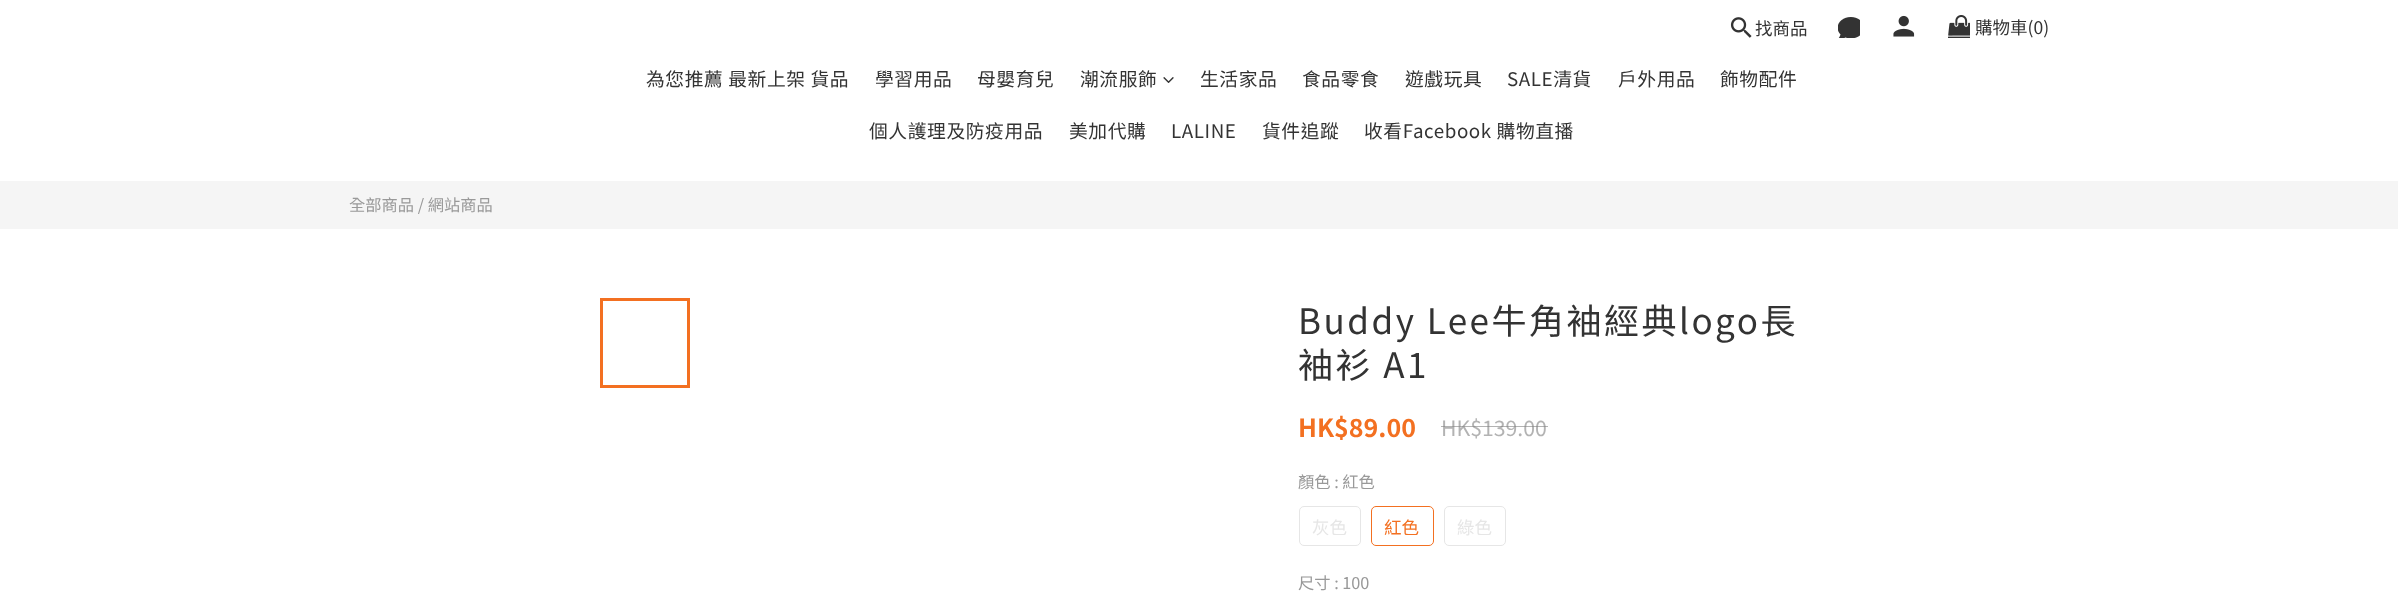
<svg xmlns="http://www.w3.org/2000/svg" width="2398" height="592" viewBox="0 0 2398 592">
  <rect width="100%" height="100%" fill="rgb(255,255,255)"/>
  <image x="1730" y="17" width="22" height="21" href="pic1.png"/>
  <text x="1755" y="35" font-family="Noto Sans TC" font-size="17.5" fill="rgb(51,51,51)">找商品</text>
  <image x="1838" y="17" width="22" height="21" href="pic2.png"/>
  <image x="1893" y="15" width="22" height="22" href="pic3.png"/>
  <image x="1948" y="15" width="22" height="23" href="pic4.png"/>
  <text x="1975" y="34" font-family="Noto Sans TC" font-size="17.5" fill="rgb(51,51,51)">購物車(0)</text>
  <g font-family="Noto Sans TC" font-size="18.75" letter-spacing="0.6" fill="rgb(51,51,51)">
    <text x="646" y="86">為您推薦 最新上架 貨品</text>
    <text x="875" y="86">學習用品</text>
    <text x="977" y="86">母嬰育兒</text>
    <text x="1080" y="86">潮流服飾</text>
  </g>
  <image x="1163" y="77" width="11" height="6" href="pic5.png"/>
  <g font-family="Noto Sans TC" font-size="18.75" letter-spacing="0.6" fill="rgb(51,51,51)">
    <text x="1200" y="86">生活家品</text>
    <text x="1302" y="86">食品零食</text>
    <text x="1405" y="86">遊戲玩具</text>
    <text x="1507" y="86">SALE清貨</text>
    <text x="1618" y="86">戶外用品</text>
    <text x="1720" y="86">飾物配件</text>
    <text x="869" y="138">個人護理及防疫用品</text>
    <text x="1069" y="138">美加代購</text>
    <text x="1171" y="138">LALINE</text>
    <text x="1262" y="138">貨件追蹤</text>
    <text x="1364" y="138">收看Facebook 購物直播</text>
  </g>
  <rect x="0" y="181" width="2398" height="48" fill="rgb(245,245,245)"/>
  <text x="349" y="211" font-family="Noto Sans TC" font-size="16.25" fill="rgb(153,153,153)">全部商品 / 網站商品</text>
  <rect x="601.5" y="299.5" width="87" height="87" fill="none" stroke="rgb(243,112,33)" stroke-width="3"/>
  <g font-family="Noto Sans TC" font-size="35" letter-spacing="2.5" fill="rgb(51,51,51)">
    <text>
      <tspan x="1298" y="334">Buddy Lee牛角袖經典logo長</tspan>
      <tspan x="1298" y="378">袖衫 A1</tspan>
    </text>
  </g>
  <text x="1298" y="437" font-family="Noto Sans TC" font-size="25" font-weight="bold" fill="rgb(243,112,33)">HK$89.00</text>
  <text x="1441" y="436" font-family="Noto Sans TC" font-size="21.25" fill="rgb(179,179,179)">HK$139.00</text>
  <rect x="1441" y="426" width="107" height="1" fill="rgba(128,128,128,0.6)"/>
  <text x="1298" y="488" font-family="Noto Sans TC" font-size="16.25" fill="rgb(153,153,153)">顏色 : 紅色</text>
  <rect x="1299.5" y="506.5" width="61" height="39" rx="4.5" fill="none" stroke="rgb(230,230,230)"/>
  <text x="1312" y="534" font-family="Noto Sans TC" font-size="17.5" fill="rgb(230,230,230)">灰色</text>
  <rect x="1371.5" y="506.5" width="62" height="39" rx="4.5" fill="none" stroke="rgb(243,112,33)"/>
  <text x="1384" y="534" font-family="Noto Sans TC" font-size="17.5" fill="rgb(243,112,33)">紅色</text>
  <rect x="1444.5" y="506.5" width="61" height="39" rx="4.5" fill="none" stroke="rgb(230,230,230)"/>
  <text x="1457" y="534" font-family="Noto Sans TC" font-size="17.5" fill="rgb(230,230,230)">綠色</text>
  <text x="1298" y="589" font-family="Noto Sans TC" font-size="16.25" fill="rgb(153,153,153)">尺寸 : 100</text>
</svg>
